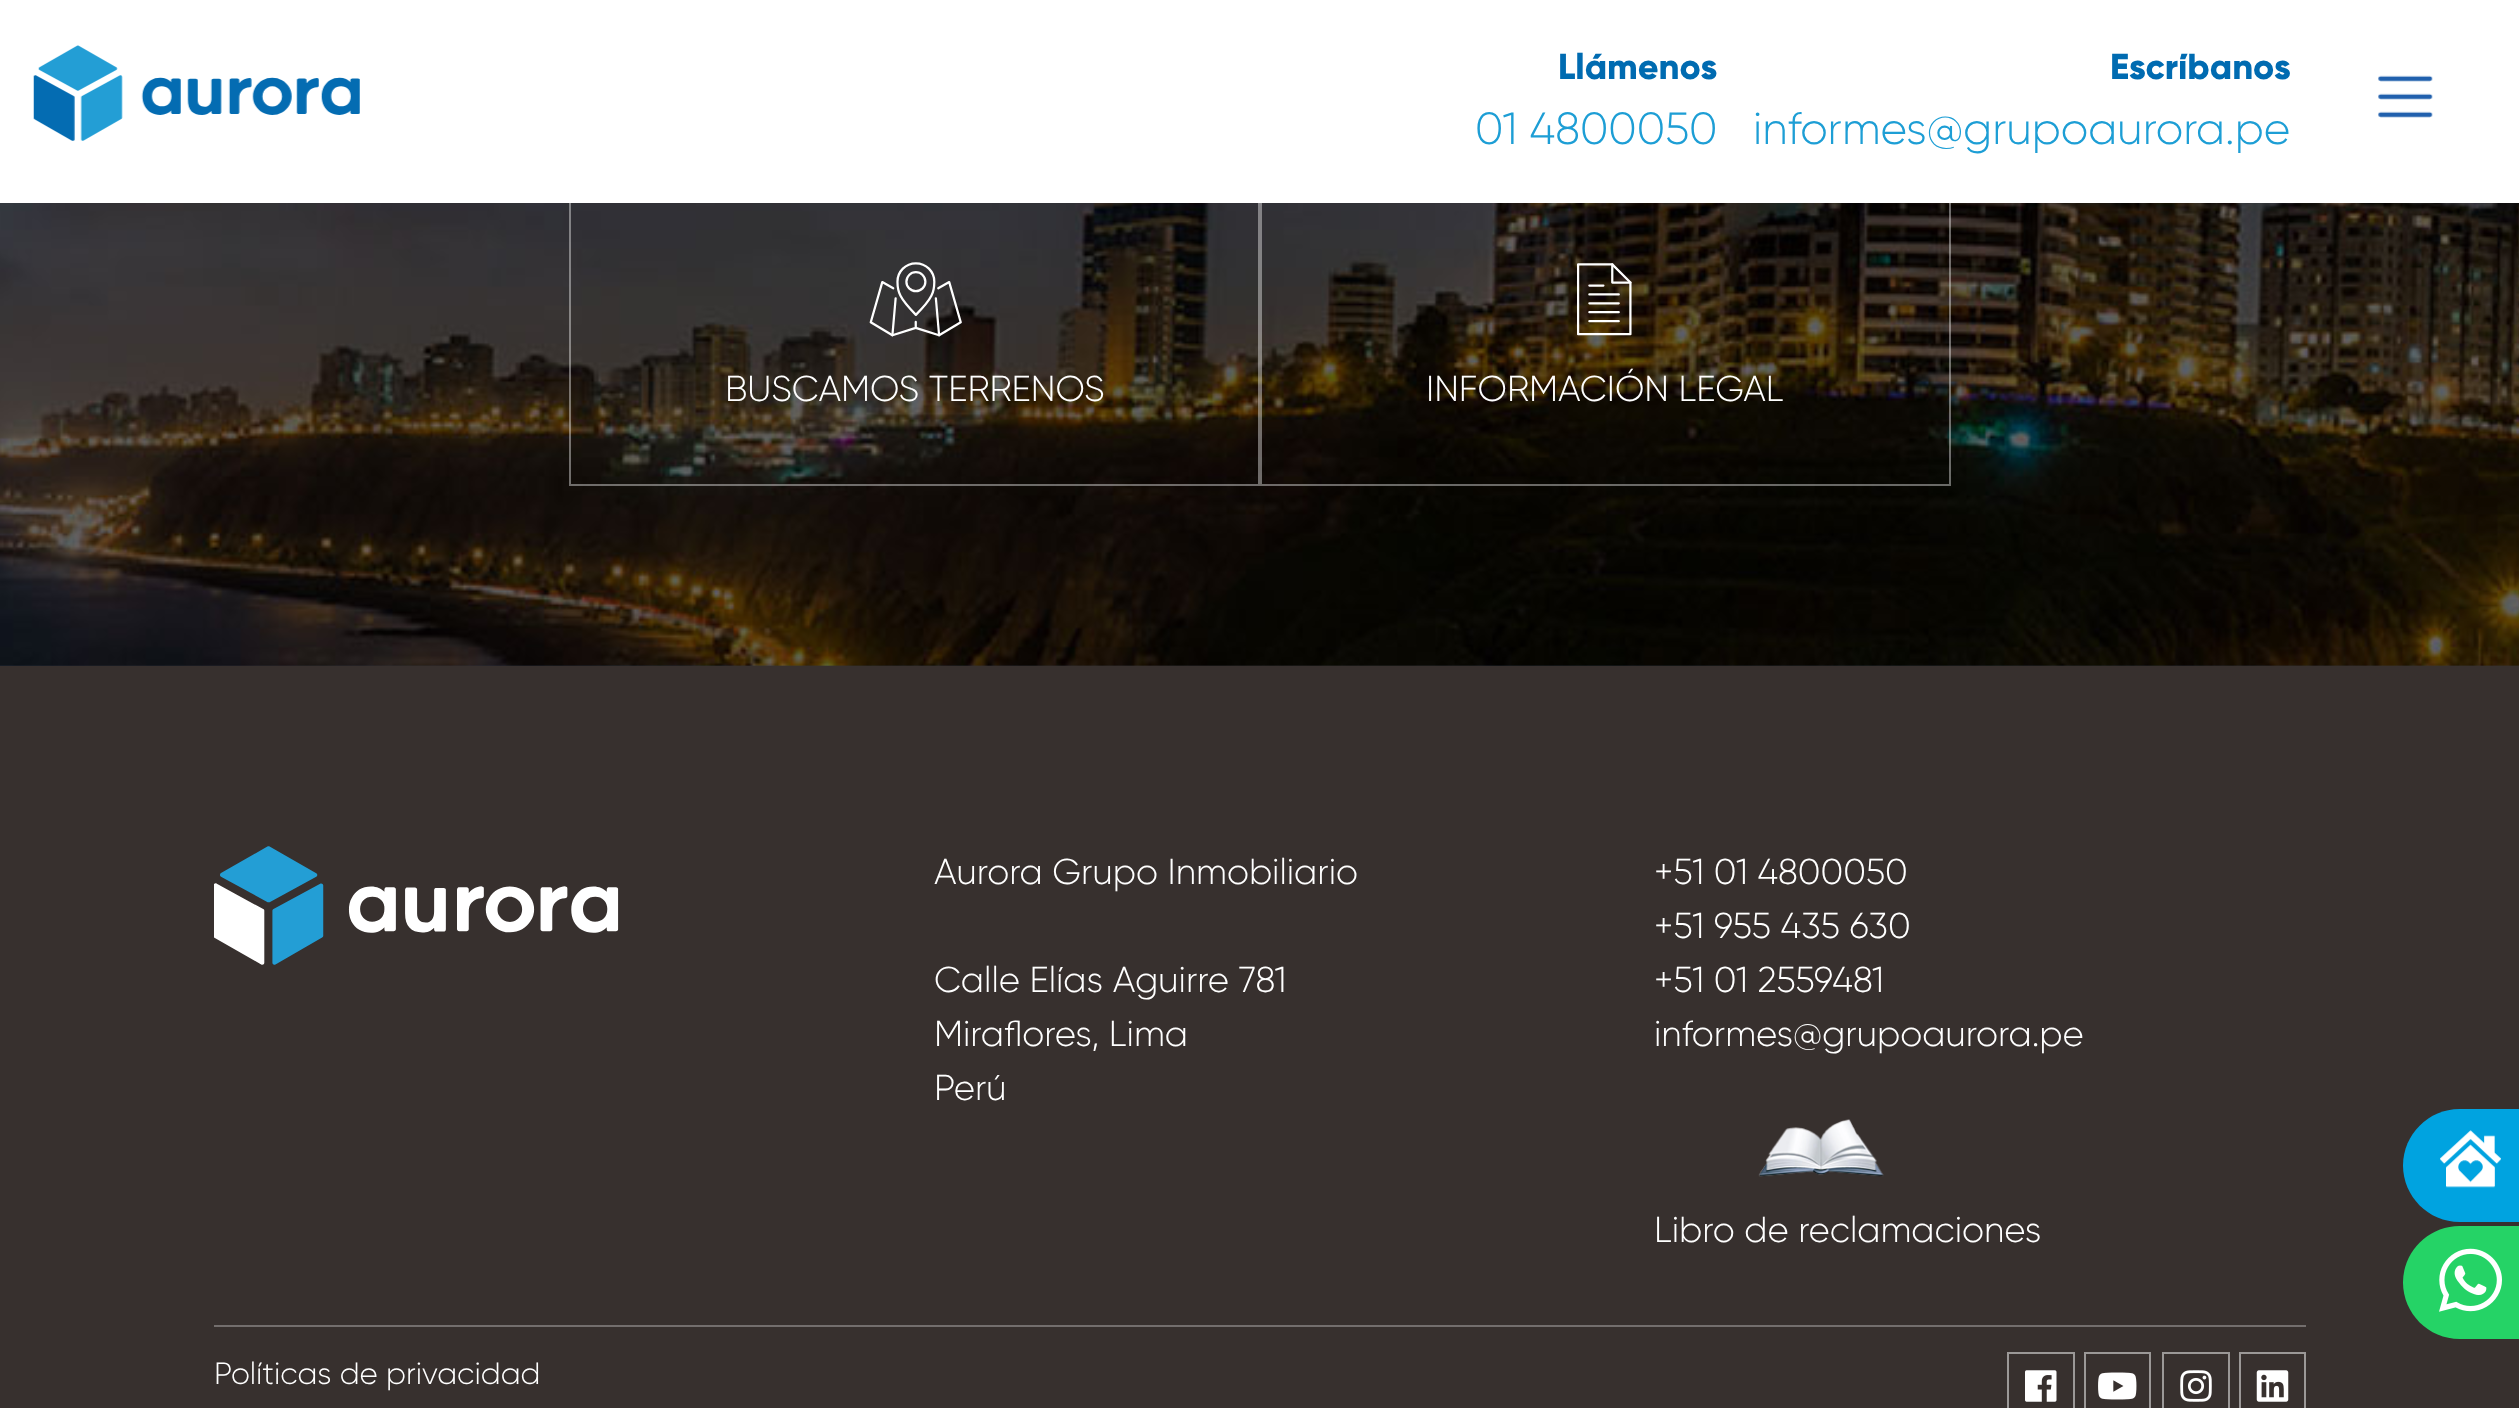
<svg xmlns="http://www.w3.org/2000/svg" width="2519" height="1408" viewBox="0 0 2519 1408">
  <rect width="100%" height="100%" fill="rgb(255,255,255)"/>
  <image x="33" y="45" width="327" height="96" href="pic1.png"/>
  <text x="1558" y="79" font-family="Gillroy" font-size="36" fill="rgb(0,107,177)">Llámenos</text>
  <text x="1475" y="144" font-family="Gilroy" font-size="45" font-weight="300" fill="rgb(29,158,213)">01 4800050</text>
  <text x="2110" y="79" font-family="Gillroy" font-size="36" fill="rgb(0,107,177)">Escríbanos</text>
  <text x="1753" y="144" font-family="Gilroy" font-size="45" font-weight="300" fill="rgb(29,158,213)">informes@grupoaurora.pe</text>
  <image x="2378" y="75" width="55" height="43" href="pic2.png"/>
  <image x="0" y="203" width="2519" height="463" href="pic3.png"/>
  <rect x="570" y="183" width="689" height="302" fill="none" stroke="rgba(255,255,255,0.4)" stroke-width="2"/>
  <image x="869" y="262" width="93" height="75" href="pic4.png"/>
  <text x="725" y="401" font-family="Gilroy" font-size="36" font-weight="300" fill="rgb(255,255,255)">BUSCAMOS TERRENOS</text>
  <rect x="1261" y="183" width="689" height="302" fill="none" stroke="rgba(255,255,255,0.4)" stroke-width="2"/>
  <image x="1576" y="263" width="56" height="73" href="pic5.png"/>
  <text x="1426" y="401" font-family="Gilroy" font-size="36" font-weight="300" fill="rgb(255,255,255)">INFORMACIÓN LEGAL</text>
  <rect x="0" y="666" width="2519" height="742" fill="rgb(55,48,46)"/>
  <image x="214" y="846" width="405" height="119" href="pic6.png"/>
  <g font-family="Gilroy" font-size="36" font-weight="300" fill="rgb(255,255,255)">
    <text x="934" y="884">Aurora Grupo Inmobiliario</text>
    <text>
      <tspan x="934" y="992">Calle Elías Aguirre 781</tspan>
      <tspan x="934" y="1046">Miraflores, Lima</tspan>
      <tspan x="934" y="1100">Perú</tspan>
    </text>
    <text>
      <tspan x="1654" y="884">+51 01 4800050</tspan>
      <tspan x="1654" y="938">+51 955 435 630</tspan>
      <tspan x="1654" y="992">+51 01 2559481</tspan>
      <tspan x="1654" y="1046">informes@grupoaurora.pe</tspan>
    </text>
  </g>
  <image x="1758" y="1119" width="126" height="58" href="pic7.png"/>
  <text x="1654" y="1242" font-family="Gilroy" font-size="36" font-weight="300" fill="rgb(255,255,255)">Libro de reclamaciones</text>
  <rect x="214" y="1325" width="2092" height="2" fill="rgb(115,110,109)"/>
  <text x="214" y="1384" font-family="Gilroy" font-size="30.9" font-weight="300" fill="rgb(255,255,255)">Políticas de privacidad</text>
  <rect x="2008" y="1353" width="66" height="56" fill="none" stroke="rgb(155,152,151)" stroke-width="2"/>
  <image x="2025" y="1370" width="32" height="32" href="pic8.png"/>
  <rect x="2085" y="1353" width="65" height="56" fill="none" stroke="rgb(155,152,151)" stroke-width="2"/>
  <image x="2098" y="1372" width="39" height="28" href="pic9.png"/>
  <rect x="2163" y="1353" width="66" height="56" fill="none" stroke="rgb(155,152,151)" stroke-width="2"/>
  <image x="2180" y="1370" width="32" height="32" href="pic10.png"/>
  <rect x="2240" y="1353" width="65" height="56" fill="none" stroke="rgb(155,152,151)" stroke-width="2"/>
  <image x="2256" y="1370" width="33" height="32" href="pic11.png"/>
  <path d="M2459.5 1109H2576V1222H2459.5C2428.5 1222 2403 1196.5 2403 1165.5C2403 1134.5 2428.5 1109 2459.5 1109Z" fill="rgb(0,163,224)"/>
  <image x="2440" y="1130" width="61" height="58" href="pic12.png"/>
  <path d="M2459.5 1226H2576V1339H2459.5C2428.5 1339 2403 1313.5 2403 1282.5C2403 1251.5 2428.5 1226 2459.5 1226Z" fill="rgb(37,211,102)"/>
  <image x="2439" y="1248" width="63" height="64" href="pic13.png"/>
</svg>
